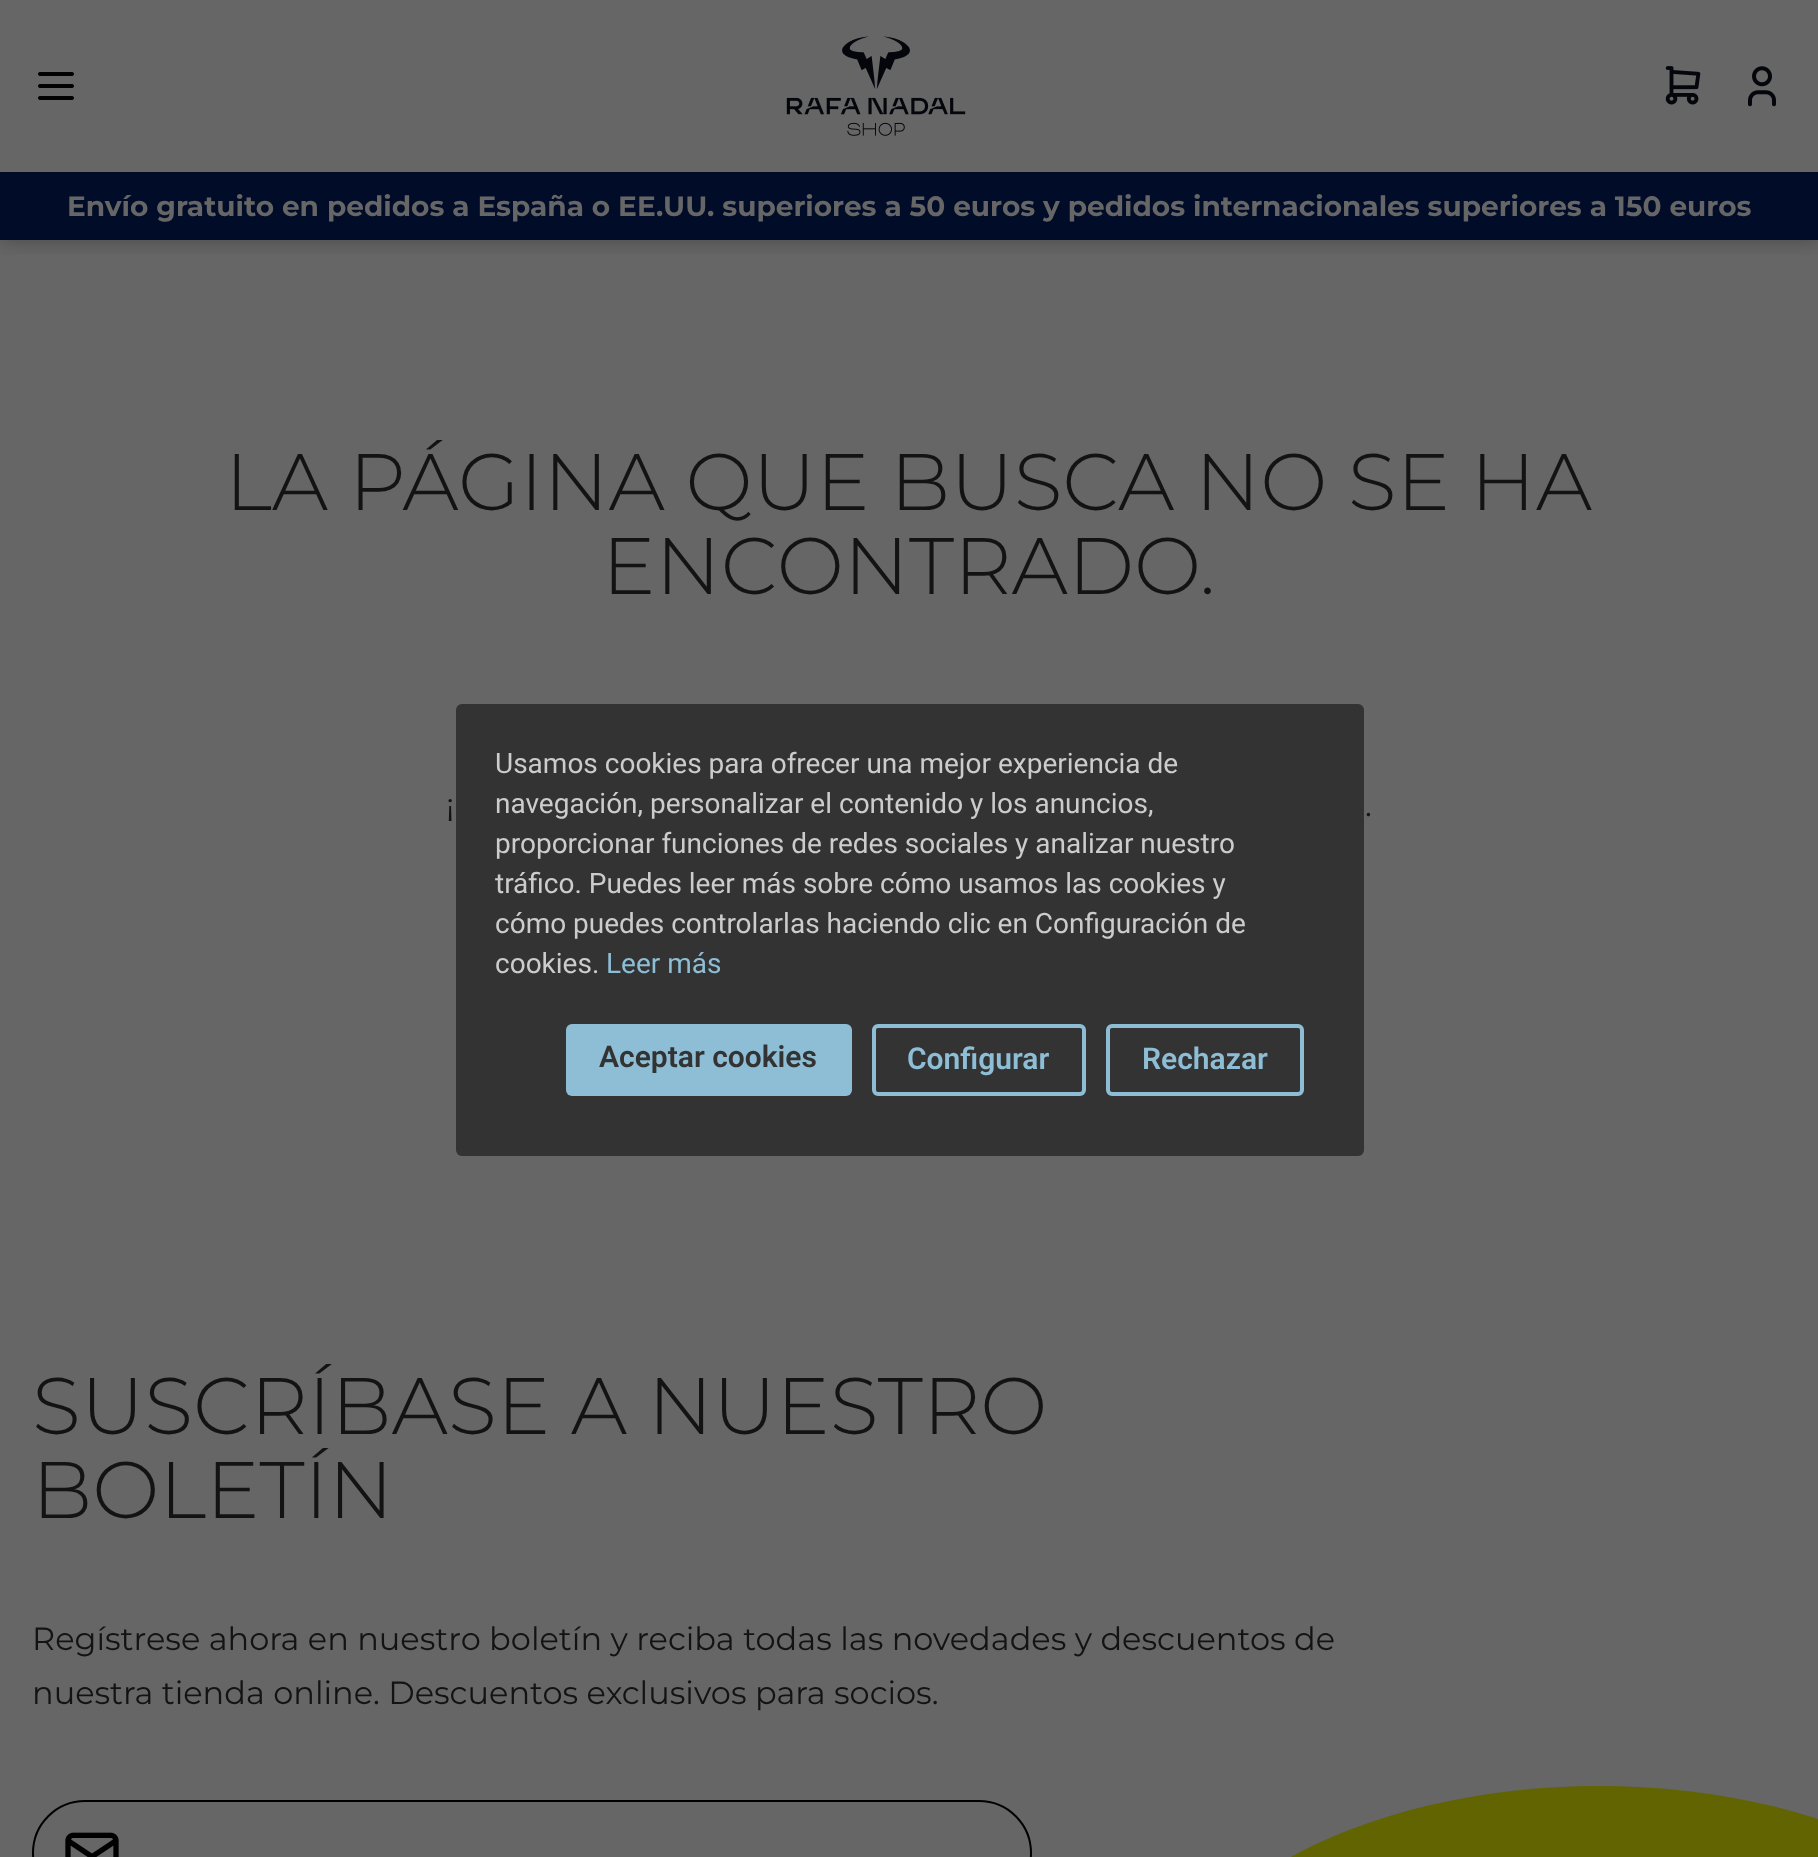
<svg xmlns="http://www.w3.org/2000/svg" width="1818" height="1857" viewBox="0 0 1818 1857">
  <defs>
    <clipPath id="clip1"><rect x="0" y="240" width="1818" height="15"/></clipPath>
  </defs>
  <rect width="100%" height="100%" fill="rgb(102,102,102)"/>
  <g clip-path="url(#clip1)">
    <rect x="0" y="0" width="1818" height="240" fill="rgba(0,0,0,0.3)" filter="blur(10px)"/>
  </g>
  <image x="38" y="72" width="36" height="28" href="pic1.png"/>
  <image x="786" y="36" width="180" height="100" href="pic2.png"/>
  <image x="1665" y="66" width="36" height="39" href="pic3.png"/>
  <image x="1748" y="66" width="28" height="41" href="pic4.png"/>
  <rect x="0" y="172" width="1818" height="68" fill="rgb(0,12,40)"/>
  <text x="67" y="216" font-family="Montserrat" font-size="28" font-weight="bold" fill="rgb(102,102,102)">Envío gratuito en pedidos a España o EE.UU. superiores a 50 euros y pedidos internacionales superiores a 150 euros</text>
  <g font-family="Montserrat" font-size="80" font-weight="300" fill="rgb(19,19,19)">
    <text x="225" y="510">LA PÁGINA QUE BUSCA NO SE HA</text>
    <text x="602" y="594">ENCONTRADO.</text>
  </g>
  <g font-family="Montserrat" font-size="32" fill="rgb(19,19,19)">
    <text x="446" y="816">¡</text>
    <text x="1365" y="816">.</text>
  </g>
  <g font-family="Montserrat" font-size="80" font-weight="300" fill="rgb(19,19,19)">
    <text>
      <tspan x="32" y="1434">SUSCRÍBASE A NUESTRO</tspan>
      <tspan x="32" y="1518">BOLETÍN</tspan>
    </text>
  </g>
  <g font-family="Montserrat" font-size="32" fill="rgb(19,19,19)">
    <text>
      <tspan x="32" y="1650">Regístrese ahora en nuestro boletín y reciba todas las novedades y descuentos de</tspan>
      <tspan x="32" y="1704">nuestra tienda online. Descuentos exclusivos para socios.</tspan>
    </text>
  </g>
  <image x="65" y="1832" width="54" height="25" href="pic5.png"/>
  <rect x="33" y="1801" width="998" height="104" rx="52" fill="none" stroke="rgb(1,1,1)" stroke-width="2"/>
  <rect x="1150" y="1786" width="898" height="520" rx="449" fill="rgb(97,100,0)"/>
  <rect x="456" y="704" width="908" height="452" rx="6" fill="rgb(51,51,51)"/>
  <g font-family="Roboto" font-size="28" fill="rgb(204,204,204)">
    <text>
      <tspan x="495" y="773">Usamos cookies para ofrecer una mejor experiencia de</tspan>
      <tspan x="495" y="813">navegación, personalizar el contenido y los anuncios,</tspan>
      <tspan x="495" y="853">proporcionar funciones de redes sociales y analizar nuestro</tspan>
      <tspan x="495" y="893">tráfico. Puedes leer más sobre cómo usamos las cookies y</tspan>
      <tspan x="495" y="933">cómo puedes controlarlas haciendo clic en Configuración de</tspan>
      <tspan x="495" y="973">cookies.</tspan>
    </text>
  </g>
  <text x="606" y="973" font-family="Roboto" font-size="28" fill="rgb(141,190,213)">Leer más</text>
  <rect x="566" y="1024" width="286" height="72" rx="6" fill="rgb(141,190,213)"/>
  <text x="599" y="1067" font-family="Roboto" font-size="30" font-weight="600" fill="rgb(51,51,51)">Aceptar cookies</text>
  <rect x="874" y="1026" width="210" height="68" rx="4" fill="none" stroke="rgb(141,190,213)" stroke-width="4"/>
  <text x="907" y="1069" font-family="Roboto" font-size="30" font-weight="600" fill="rgb(141,190,213)">Configurar</text>
  <rect x="1108" y="1026" width="194" height="68" rx="4" fill="none" stroke="rgb(141,190,213)" stroke-width="4"/>
  <text x="1142" y="1069" font-family="Roboto" font-size="30" font-weight="600" fill="rgb(141,190,213)">Rechazar</text>
</svg>
